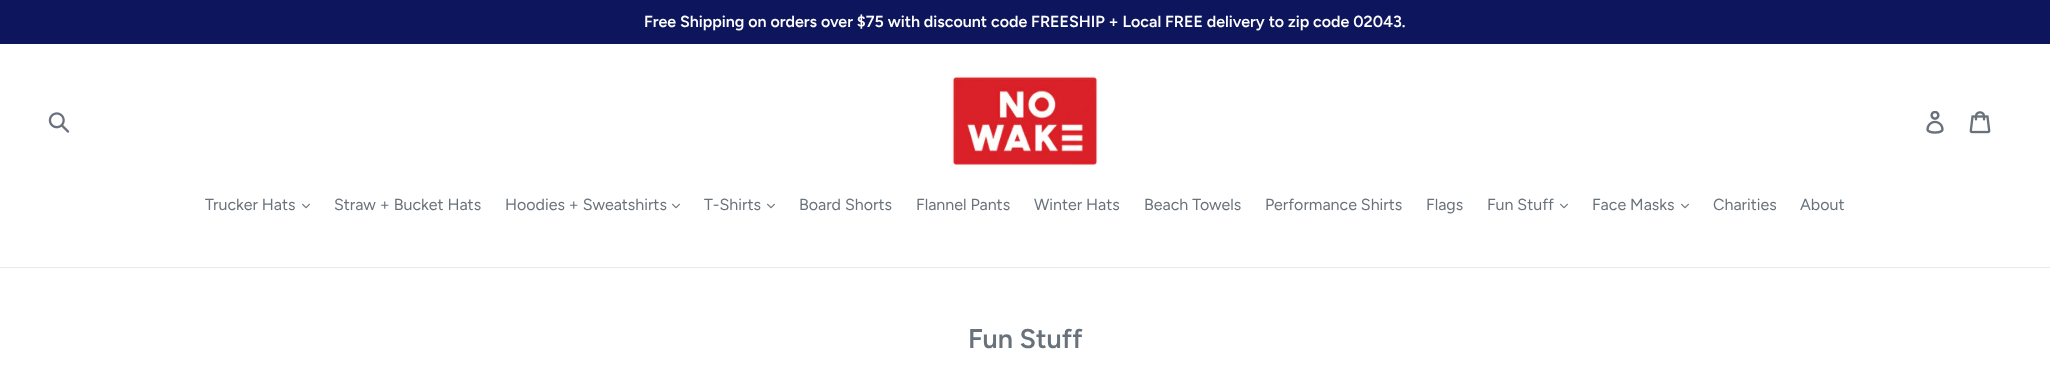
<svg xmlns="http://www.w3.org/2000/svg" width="2050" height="387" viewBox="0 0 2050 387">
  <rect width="100%" height="100%" fill="rgb(255,255,255)"/>
  <rect x="0" y="0" width="2050" height="44" fill="rgb(13,21,92)"/>
  <text x="644" y="27" font-family="Figtree" font-size="16" font-weight="600" fill="rgb(255,255,255)">Free Shipping on orders over $75 with discount code FREESHIP + Local FREE delivery to zip code 02043.</text>
  <image x="48" y="112" width="22" height="21" href="pic1.png"/>
  <image x="950" y="74" width="148" height="93" href="pic2.png"/>
  <image x="1926" y="111" width="18" height="23" href="pic3.png"/>
  <image x="1969" y="111" width="22" height="23" href="pic4.png"/>
  <rect x="0" y="267" width="2050" height="1" fill="rgb(232,233,235)"/>
  <text x="205" y="210" font-family="Figtree" font-size="16" fill="rgb(105,114,123)">Trucker Hats</text>
  <image x="302" y="203" width="8" height="6" href="pic5.png"/>
  <g font-family="Figtree" font-size="16" fill="rgb(105,114,123)">
    <text x="334" y="210">Straw + Bucket Hats</text>
    <text x="505" y="210">Hoodies + Sweatshirts</text>
  </g>
  <image x="672" y="203" width="8" height="6" href="pic5.png"/>
  <text x="704" y="210" font-family="Figtree" font-size="16" fill="rgb(105,114,123)">T-Shirts</text>
  <image x="767" y="203" width="8" height="6" href="pic5.png"/>
  <g font-family="Figtree" font-size="16" fill="rgb(105,114,123)">
    <text x="799" y="210">Board Shorts</text>
    <text x="916" y="210">Flannel Pants</text>
    <text x="1034" y="210">Winter Hats</text>
    <text x="1144" y="210">Beach Towels</text>
    <text x="1265" y="210">Performance Shirts</text>
    <text x="1426" y="210">Flags</text>
    <text x="1487" y="210">Fun Stuff</text>
  </g>
  <image x="1560" y="203" width="8" height="6" href="pic5.png"/>
  <text x="1592" y="210" font-family="Figtree" font-size="16" fill="rgb(105,114,123)">Face Masks</text>
  <image x="1681" y="203" width="8" height="6" href="pic5.png"/>
  <g font-family="Figtree" font-size="16" fill="rgb(105,114,123)">
    <text x="1713" y="210">Charities</text>
    <text x="1800" y="210">About</text>
  </g>
  <text x="968" y="348" font-family="Figtree" font-size="27" font-weight="600" fill="rgb(105,114,123)">Fun Stuff</text>
</svg>
